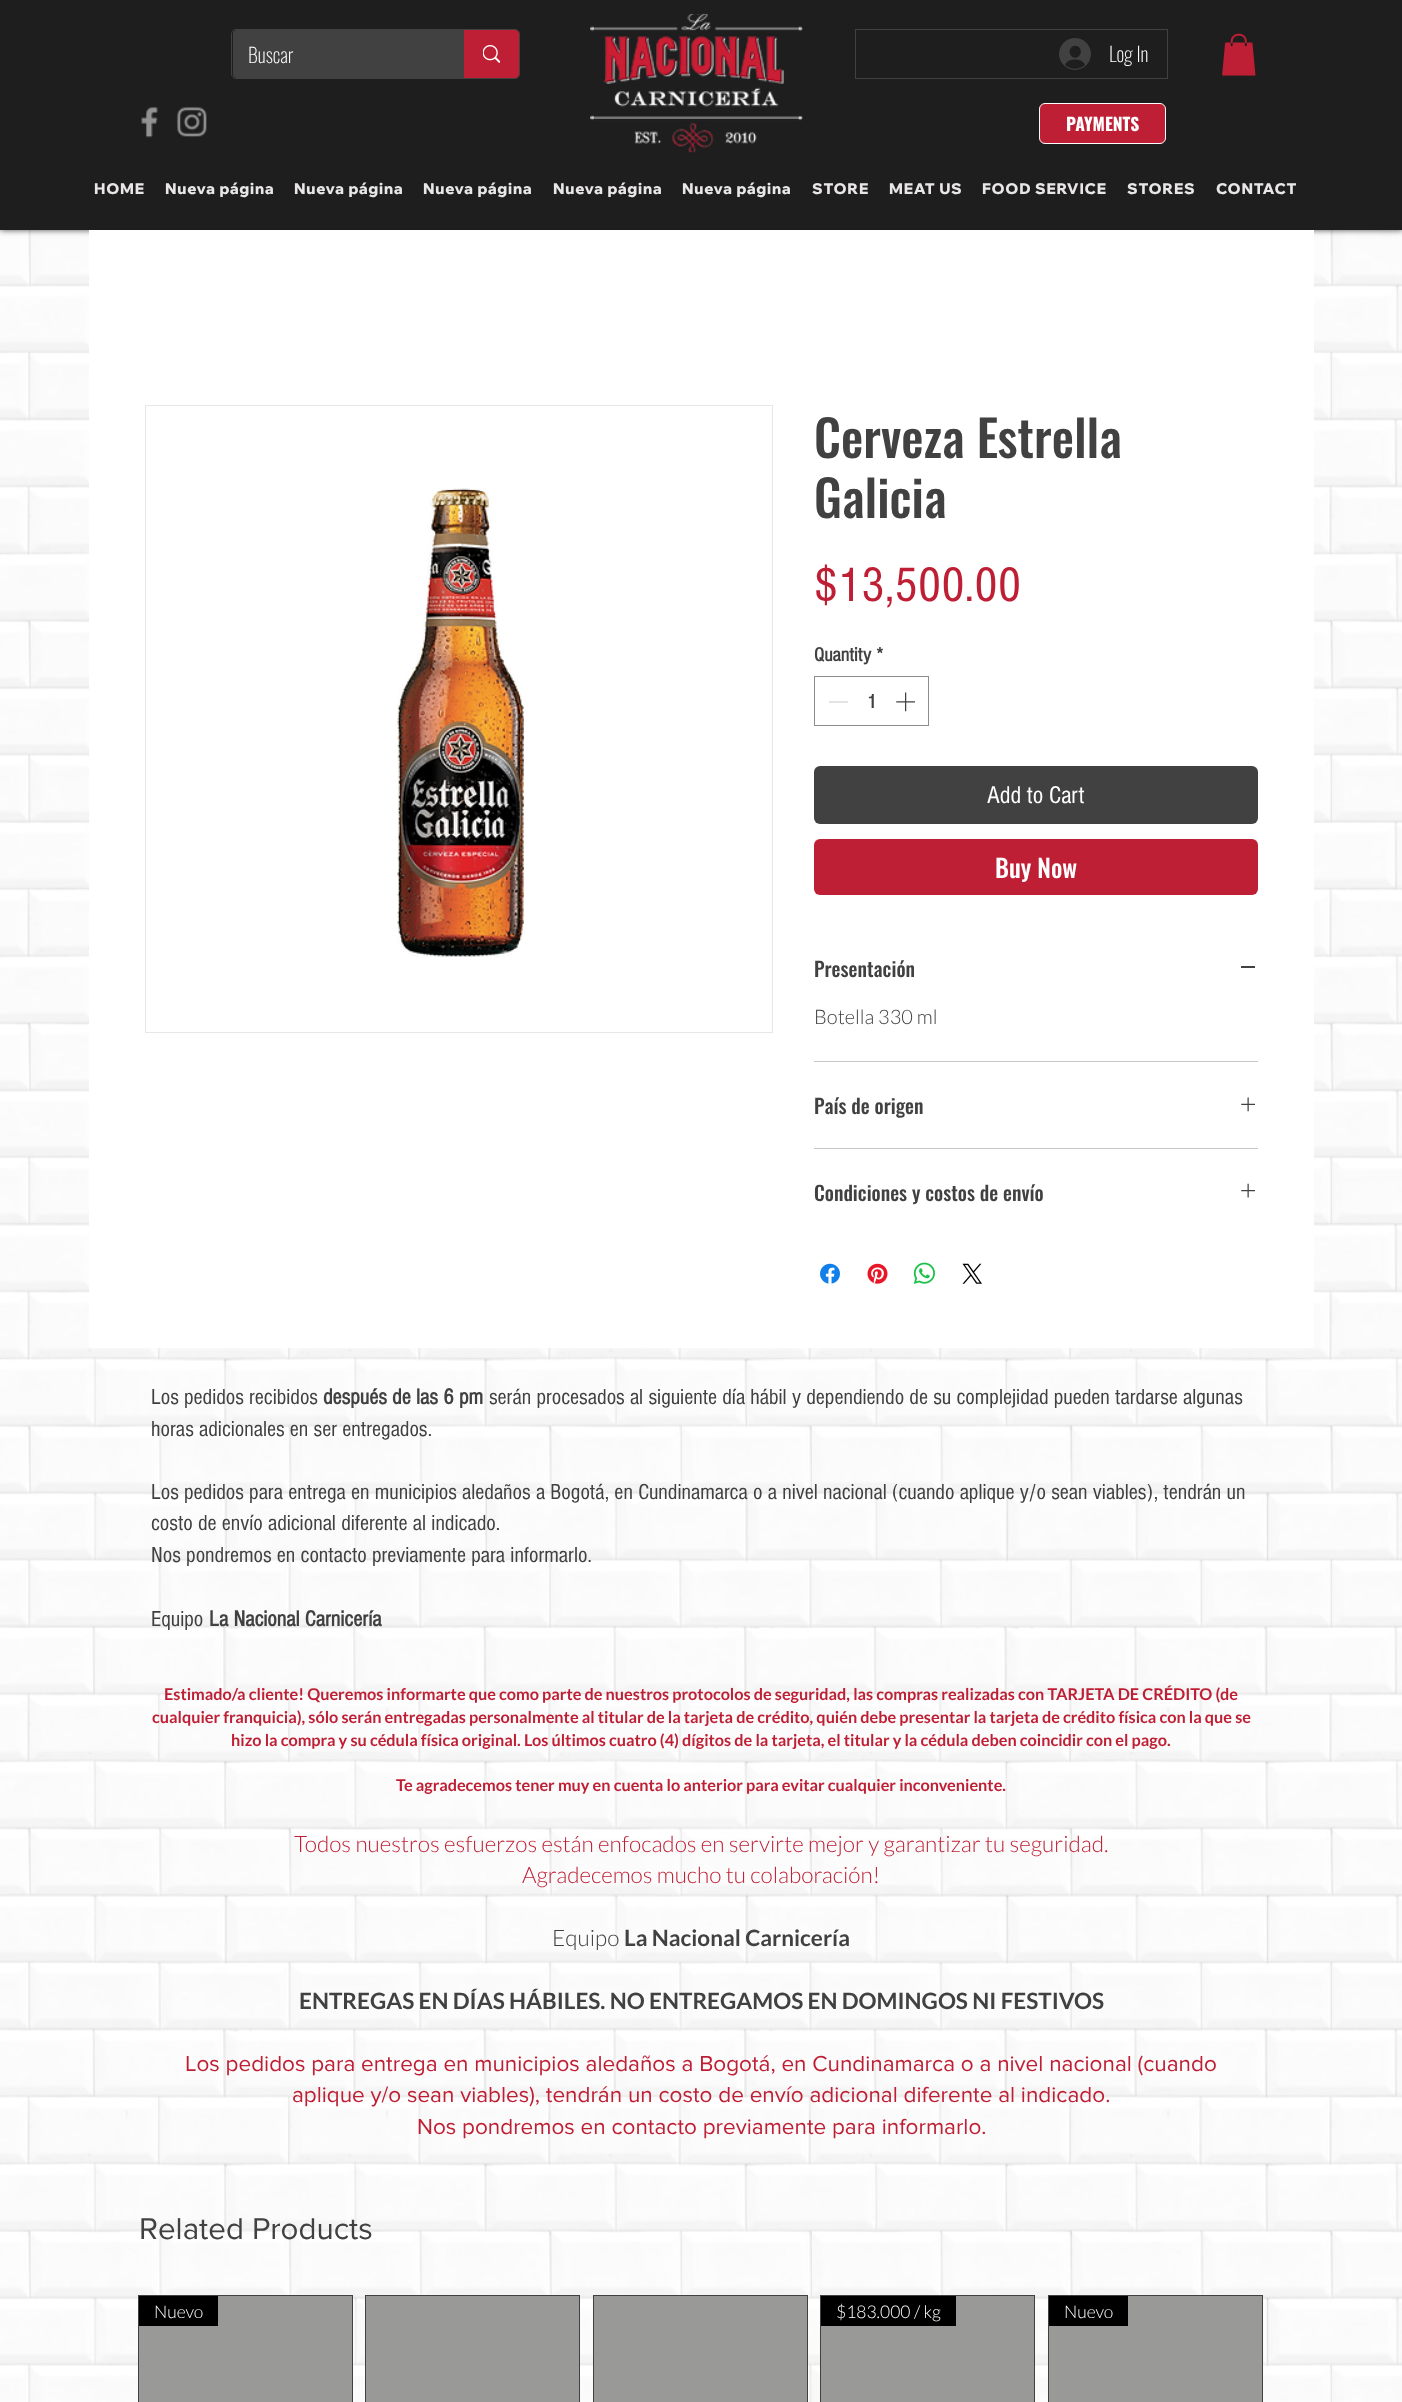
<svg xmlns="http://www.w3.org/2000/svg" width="1402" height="2402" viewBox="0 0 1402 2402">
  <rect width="100%" height="100%" fill="rgb(255,255,255)"/>
  <image x="0" y="230" width="1402" height="2172" href="pic15.png"/>
  <rect x="0" y="0" width="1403" height="230" fill="rgba(0,0,0,0.7)" filter="blur(3px)"/>
  <rect x="0" y="0" width="1402" height="230" fill="rgb(30,30,30)"/>
  <rect x="231.5" y="29.5" width="288" height="49" rx="4.5" fill="none" stroke="rgb(65,65,65)"/>
  <rect x="233" y="30" width="286" height="48" rx="4" fill="rgb(65,65,65)"/>
  <text x="248" y="63" font-family="Oswald" font-size="20" font-weight="200" fill="rgb(255,255,255)">Buscar</text>
  <path d="M463 30H515C517 30 519 32 519 34V74C519 76 517 78 515 78H463Z" fill="rgb(191,31,52)"/>
  <rect x="463" y="30" width="1" height="48" fill="rgb(65,65,65)"/>
  <image x="483" y="45" width="17" height="18" href="pic1.png"/>
  <image x="590" y="13" width="213" height="140" href="pic2.png"/>
  <rect x="855.5" y="29.5" width="312" height="49" fill="none" stroke="rgb(65,65,65)"/>
  <image x="1059" y="38" width="32" height="32" href="pic3.png"/>
  <text x="1109" y="62" font-family="Oswald" font-size="20" font-weight="200" fill="rgb(255,255,255)">Log In</text>
  <image x="1222" y="33" width="34" height="43" href="pic4.png"/>
  <image x="141" y="106" width="17" height="32" href="pic5.png"/>
  <image x="176" y="106" width="31" height="31" href="pic6.png"/>
  <rect x="1039.5" y="103.5" width="126" height="40" rx="5.5" fill="rgb(191,31,52)" stroke="rgb(255,255,255)"/>
  <text x="1066" y="131" font-family="Oswald" font-size="17.5" font-weight="bold" fill="rgb(255,255,255)">PAYMENTS</text>
  <g font-family="Wix Madefor Display" font-size="15" font-weight="800" letter-spacing="0.75" fill="rgb(232,230,230)">
    <text x="94" y="194">HOME</text>
    <text x="165" y="194">Nueva página</text>
    <text x="294" y="194">Nueva página</text>
    <text x="423" y="194">Nueva página</text>
    <text x="553" y="194">Nueva página</text>
    <text x="682" y="194">Nueva página</text>
    <text x="812" y="194">STORE</text>
    <text x="889" y="194">MEAT US</text>
    <text x="982" y="194">FOOD SERVICE</text>
    <text x="1127" y="194">STORES</text>
    <text x="1216" y="194">CONTACT</text>
  </g>
  <rect x="89" y="230" width="1225" height="1118" fill="rgb(255,255,255)"/>
  <rect x="145.5" y="405.5" width="627" height="627" fill="none" stroke="rgb(232,230,230)"/>
  <image x="397" y="488" width="128" height="470" href="pic7.png"/>
  <g font-family="Oswald" font-size="50" font-weight="500" fill="rgb(65,65,65)">
    <text>
      <tspan x="814" y="458">Cerveza Estrella</tspan>
      <tspan x="814" y="518">Galicia</tspan>
    </text>
  </g>
  <text x="814" y="601" font-family="'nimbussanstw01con'" font-size="50" fill="rgb(191,31,52)">$13,500.00</text>
  <g font-family="'nimbussanstw01con'" font-size="20" font-weight="bold" fill="rgb(65,65,65)">
    <text x="814" y="661">Quantity</text>
    <text x="876" y="661">*</text>
  </g>
  <rect x="814.5" y="676.5" width="114" height="49" fill="none" stroke="rgb(141,141,141)"/>
  <rect x="829" y="701" width="19" height="2" fill="rgb(227,227,227)"/>
  <text x="867" y="708" font-family="'nimbussanstw01con'" font-size="20" font-weight="bold" fill="rgb(65,65,65)">1</text>
  <image x="896" y="692" width="19" height="20" href="pic8.png"/>
  <rect x="814" y="766" width="444" height="58" rx="6" fill="rgb(65,65,65)"/>
  <text x="987" y="803" font-family="'nimbussanstw01con'" font-size="25" fill="rgb(255,255,255)">Add to Cart</text>
  <rect x="814" y="839" width="444" height="56" rx="6" fill="rgb(191,31,52)"/>
  <text x="995" y="878" font-family="Oswald" font-size="25" font-weight="500" fill="rgb(255,255,255)">Buy Now</text>
  <rect x="814" y="1061" width="444" height="1" fill="rgb(199,199,199)"/>
  <text x="814" y="977" font-family="Oswald" font-size="20" font-weight="500" fill="rgb(65,65,65)">Presentación</text>
  <rect x="1241" y="966" width="14" height="2" fill="rgb(65,65,65)"/>
  <text x="814" y="1024" font-family="Lato" font-size="20" font-weight="300" fill="rgb(65,65,65)">Botella 330 ml</text>
  <rect x="814" y="1148" width="444" height="1" fill="rgb(199,199,199)"/>
  <text x="814" y="1114" font-family="Oswald" font-size="20" font-weight="500" fill="rgb(65,65,65)">País de origen</text>
  <image x="1241" y="1097" width="14" height="15" href="pic9.png"/>
  <text x="814" y="1201" font-family="Oswald" font-size="20" font-weight="500" fill="rgb(65,65,65)">Condiciones y costos de envío</text>
  <image x="1241" y="1183" width="14" height="15" href="pic10.png"/>
  <image x="820" y="1263" width="20" height="21" href="pic11.png"/>
  <image x="867" y="1263" width="21" height="21" href="pic12.png"/>
  <image x="913" y="1262" width="22" height="22" href="pic13.png"/>
  <image x="962" y="1263" width="20" height="21" href="pic14.png"/>
  <text x="151" y="1404" font-family="'nimbussanstw01con'" font-size="22.5" fill="rgb(65,65,65)">Los pedidos recibidos</text>
  <text x="323" y="1404" font-family="'nimbussanstw01con'" font-size="22.5" font-weight="bold" fill="rgb(65,65,65)">después de las 6 pm</text>
  <g font-family="'nimbussanstw01con'" font-size="22.5" fill="rgb(65,65,65)">
    <text x="489" y="1404">serán procesados al siguiente día hábil y dependiendo de su complejidad pueden tardarse algunas</text>
    <text x="151" y="1436">horas adicionales en ser entregados.</text>
    <text>
      <tspan x="151" y="1499">Los pedidos para entrega en municipios aledaños a Bogotá, en Cundinamarca o a nivel nacional (cuando aplique y/o sean viables), tendrán un</tspan>
      <tspan x="151" y="1530">costo de envío adicional diferente al indicado.</tspan>
      <tspan x="151" y="1562">Nos pondremos en contacto previamente para informarlo.</tspan>
    </text>
    <text x="151" y="1626">Equipo</text>
  </g>
  <text x="209" y="1626" font-family="'nimbussanstw01con'" font-size="22.5" font-weight="bold" fill="rgb(65,65,65)">La Nacional Carnicería</text>
  <g font-family="Lato" font-size="16.25" font-weight="bold" fill="rgb(191,31,52)">
    <text x="164" y="1700">Estimado/a cliente! Queremos informarte que como parte de nuestros protocolos de seguridad, las compras realizadas con TARJETA DE CRÉDITO (de</text>
    <text x="152" y="1723">cualquier franquicia), sólo serán entregadas personalmente al titular de la tarjeta de crédito, quién debe presentar la tarjeta de crédito física con la que se</text>
    <text x="231" y="1746">hizo la compra y su cédula física original. Los últimos cuatro (4) dígitos de la tarjeta, el titular y la cédula deben coincidir con el pago.</text>
    <text x="396" y="1791">Te agradecemos tener muy en cuenta lo anterior para evitar cualquier inconveniente.</text>
  </g>
  <g font-family="Lato" font-size="22.5" font-weight="300" fill="rgb(191,31,52)">
    <text x="294" y="1852">Todos nuestros esfuerzos están enfocados en servirte mejor y garantizar tu seguridad.</text>
    <text x="522" y="1883">Agradecemos mucho tu colaboración!</text>
  </g>
  <text x="552" y="1946" font-family="Lato" font-size="22.5" font-weight="300" fill="rgb(65,65,65)">Equipo</text>
  <g font-family="Lato" font-size="22.5" font-weight="bold" fill="rgb(65,65,65)">
    <text x="624" y="1946">La Nacional Carnicería</text>
    <text x="299" y="2009">ENTREGAS EN DÍAS HÁBILES. NO ENTREGAMOS EN DOMINGOS NI FESTIVOS</text>
  </g>
  <g font-family="'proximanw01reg'" font-size="22.5" fill="rgb(191,31,52)">
    <text x="185" y="2071">Los pedidos para entrega en municipios aledaños a Bogotá, en Cundinamarca o a nivel nacional (cuando</text>
    <text x="292" y="2102">aplique y/o sean viables), tendrán un costo de envío adicional diferente al indicado.</text>
    <text x="417" y="2134">Nos pondremos en contacto previamente para informarlo.</text>
  </g>
  <text x="139" y="2239" font-family="'proximanw01reg'" font-size="31.25" fill="rgb(65,65,65)">Related Products</text>
  <rect x="138.5" y="2295.5" width="214" height="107" fill="rgb(153,153,151)" stroke="rgb(65,65,65)"/>
  <rect x="139" y="2296" width="79" height="30" fill="rgb(0,0,0)"/>
  <text x="154" y="2318" font-family="Lato" font-size="17.5" font-weight="300" fill="rgb(255,255,255)">Nuevo</text>
  <rect x="365.5" y="2295.5" width="214" height="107" fill="rgb(153,153,151)" stroke="rgb(65,65,65)"/>
  <rect x="593.5" y="2295.5" width="214" height="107" fill="rgb(153,153,151)" stroke="rgb(65,65,65)"/>
  <rect x="820.5" y="2295.5" width="214" height="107" fill="rgb(153,153,151)" stroke="rgb(65,65,65)"/>
  <rect x="821" y="2296" width="135" height="30" fill="rgb(0,0,0)"/>
  <text x="836" y="2318" font-family="Lato" font-size="17.5" font-weight="300" fill="rgb(255,255,255)">$183.000 / kg</text>
  <rect x="1048.5" y="2295.5" width="214" height="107" fill="rgb(153,153,151)" stroke="rgb(65,65,65)"/>
  <rect x="1049" y="2296" width="79" height="30" fill="rgb(0,0,0)"/>
  <text x="1064" y="2318" font-family="Lato" font-size="17.5" font-weight="300" fill="rgb(255,255,255)">Nuevo</text>
</svg>
